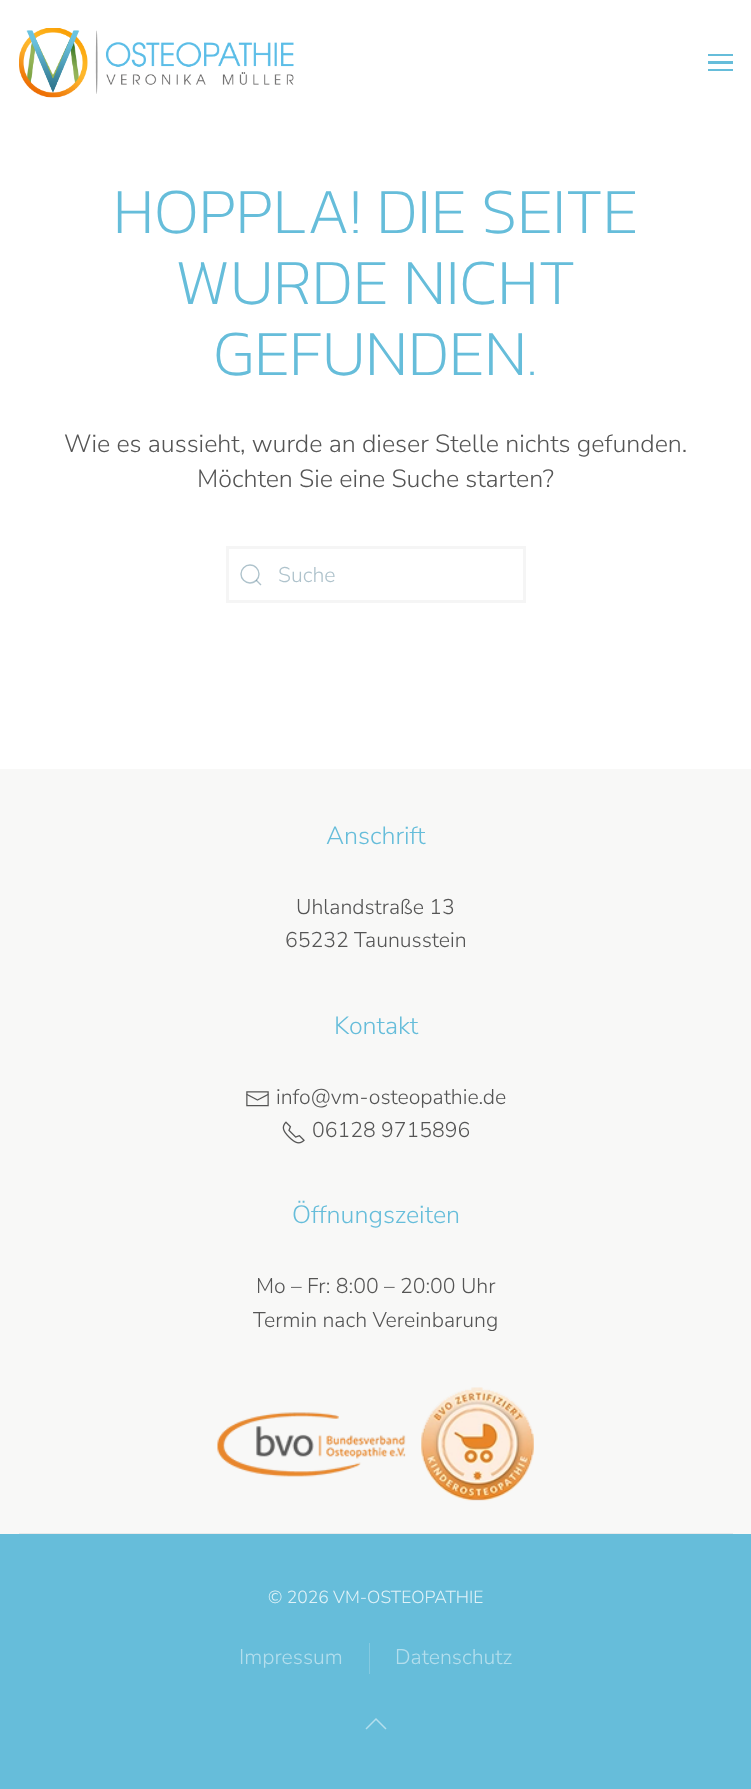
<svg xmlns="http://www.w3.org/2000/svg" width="751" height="1789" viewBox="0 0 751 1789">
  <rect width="100%" height="100%" fill="rgb(255,255,255)"/>
  <image x="19" y="28" width="275" height="70" href="pic1.png"/>
  <rect x="708" y="54" width="25" height="2" fill="rgb(102,189,218)"/>
  <rect x="708" y="61" width="25" height="3" fill="rgb(102,189,218)"/>
  <rect x="708" y="69" width="25" height="2" fill="rgb(102,189,218)"/>
  <g font-family="Kanit" font-size="65" font-weight="200" fill="rgb(102,189,218)">
    <text x="113" y="233">HOPPLA! DIE SEITE</text>
    <text x="175" y="304">WURDE NICHT</text>
    <text x="213" y="375">GEFUNDEN.</text>
  </g>
  <g font-family="Nunito Sans" font-size="25" font-weight="200" fill="rgb(85,85,85)">
    <text x="64" y="452">Wie es aussieht, wurde an dieser Stelle nichts gefunden.</text>
    <text x="197" y="487">Möchten Sie eine Suche starten?</text>
  </g>
  <rect x="227.5" y="547.5" width="297" height="54" fill="none" stroke="rgb(245,245,245)" stroke-width="3"/>
  <circle cx="250" cy="574" r="9" fill="none" stroke="rgb(175,195,204)" stroke-width="1.4"/>
  <path d="M256 580L261 585Z" fill="none" stroke="rgba(95,134,152,0.5)" stroke-width="1.4"/>
  <text x="278" y="582" font-family="Nunito Sans" font-size="21.25" font-weight="200" fill="rgb(175,195,204)">Suche</text>
  <rect x="0" y="769" width="751" height="765" fill="rgb(248,248,247)"/>
  <text x="326" y="844" font-family="Nunito Sans" font-size="25" font-weight="200" fill="rgb(102,189,218)">Anschrift</text>
  <g font-family="Nunito Sans" font-size="21.25" font-weight="200" fill="rgb(85,85,85)">
    <text x="296" y="914">Uhlandstraße 13</text>
    <text x="285" y="947">65232 Taunusstein</text>
  </g>
  <text x="334" y="1034" font-family="Nunito Sans" font-size="25" font-weight="200" fill="rgb(102,189,218)">Kontakt</text>
  <image x="246" y="1091" width="23" height="16" href="pic2.png"/>
  <text x="276" y="1104" font-family="Nunito Sans" font-size="21.25" font-weight="200" fill="rgb(85,85,85)">info@vm-osteopathie.de</text>
  <image x="282" y="1121" width="23" height="23" href="pic3.png"/>
  <text x="312" y="1137" font-family="Nunito Sans" font-size="21.25" font-weight="200" fill="rgb(85,85,85)">06128 9715896</text>
  <text x="292" y="1223" font-family="Nunito Sans" font-size="25" font-weight="200" fill="rgb(102,189,218)">Öffnungszeiten</text>
  <g font-family="Nunito Sans" font-size="21.25" font-weight="200" fill="rgb(85,85,85)">
    <text x="256" y="1293">Mo – Fr: 8:00 – 20:00 Uhr</text>
    <text x="253" y="1327">Termin nach Vereinbarung</text>
  </g>
  <image x="217" y="1387" width="317" height="114" href="pic4.png"/>
  <rect x="19" y="1533" width="714" height="1" fill="rgb(231,234,235)"/>
  <rect x="0" y="1534" width="751" height="255" fill="rgb(102,189,218)"/>
  <text x="268" y="1603" font-family="Nunito Sans" font-size="17.5" font-weight="200" fill="rgb(224,242,248)">© 2026 VM-OSTEOPATHIE</text>
  <text x="239" y="1664" font-family="Nunito Sans" font-size="21.25" font-weight="200" fill="rgb(179,222,237)">Impressum</text>
  <rect x="369" y="1643" width="1" height="31" fill="rgb(133,202,225)"/>
  <text x="395" y="1664" font-family="Nunito Sans" font-size="21.25" font-weight="200" fill="rgb(179,222,237)">Datenschutz</text>
  <path d="M366 1729L376 1719L386 1729" fill="none" stroke="rgb(179,222,237)" stroke-width="1.5"/>
</svg>
